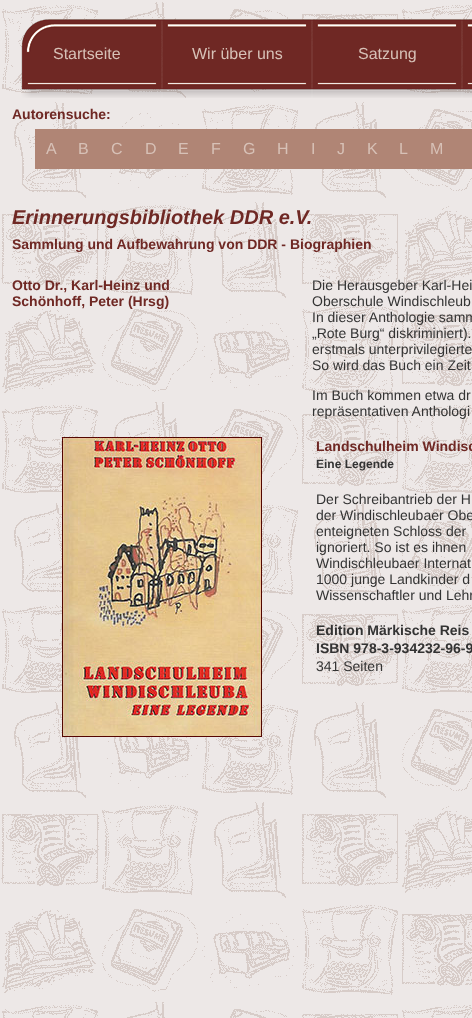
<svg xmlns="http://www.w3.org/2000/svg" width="472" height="1018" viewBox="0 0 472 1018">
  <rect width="100%" height="100%" fill="rgb(255,255,255)"/>
  <image x="0" y="0" width="472" height="1018" href="pic1.png"/>
  <image x="21" y="19" width="141" height="79" href="pic2.png"/>
  <text x="53" y="59" font-family="Liberation Sans" font-size="16" fill="rgb(215,193,183)">Startseite</text>
  <image x="162" y="19" width="150" height="79" href="pic3.png"/>
  <text x="192" y="59" font-family="Liberation Sans" font-size="16" fill="rgb(215,193,183)">Wir über uns</text>
  <image x="312" y="19" width="150" height="79" href="pic4.png"/>
  <text x="358" y="59" font-family="Liberation Sans" font-size="16" fill="rgb(215,193,183)">Satzung</text>
  <image x="462" y="19" width="10" height="79" href="pic5.png"/>
  <text x="12" y="119" font-family="Liberation Sans" font-size="14" font-weight="bold" fill="rgb(111,40,36)">Autorensuche:</text>
  <rect x="35" y="129" width="437" height="40" fill="rgb(176,133,117)"/>
  <g font-family="Liberation Sans" font-size="16" fill="rgb(215,193,183)">
    <text x="46" y="154">A</text>
    <text x="78" y="154">B</text>
    <text x="111" y="154">C</text>
    <text x="145" y="154">D</text>
    <text x="178" y="154">E</text>
    <text x="211" y="154">F</text>
    <text x="243" y="154">G</text>
    <text x="277" y="154">H</text>
    <text x="311" y="154">I</text>
    <text x="337" y="154">J</text>
    <text x="367" y="154">K</text>
    <text x="399" y="154">L</text>
    <text x="430" y="154">M</text>
  </g>
  <text x="12" y="224" font-family="Liberation Sans" font-size="20" font-weight="bold" font-style="italic" fill="rgb(111,40,36)">Erinnerungsbibliothek DDR e.V.</text>
  <g font-family="Liberation Sans" font-size="14" font-weight="bold" fill="rgb(111,40,36)">
    <text x="12" y="249">Sammlung und Aufbewahrung von DDR - Biographien</text>
    <text>
      <tspan x="12" y="290">Otto Dr., Karl-Heinz und</tspan>
      <tspan x="12" y="306">Schönhoff, Peter (Hrsg)</tspan>
    </text>
  </g>
  <g font-family="Liberation Sans" font-size="14" fill="rgb(51,51,51)">
    <text>
      <tspan x="312" y="290">Die Herausgeber Karl-Hei</tspan>
      <tspan x="312" y="306">Oberschule Windischleub</tspan>
      <tspan x="312" y="322">In dieser Anthologie samm</tspan>
      <tspan x="312" y="338">„Rote Burg“ diskriminiert).</tspan>
      <tspan x="312" y="354">erstmals unterprivilegierte</tspan>
      <tspan x="312" y="370">So wird das Buch ein Zeit</tspan>
    </text>
    <text>
      <tspan x="312" y="400">Im Buch kommen etwa dr</tspan>
      <tspan x="312" y="416">repräsentativen Anthologi</tspan>
    </text>
  </g>
  <image x="62" y="437" width="200" height="300" href="pic6.png"/>
  <text x="316" y="451" font-family="Liberation Sans" font-size="14" font-weight="bold" fill="rgb(111,40,36)">Landschulheim Windisc</text>
  <text x="316" y="468" font-family="Liberation Sans" font-size="12" font-weight="bold" fill="rgb(51,51,51)">Eine Legende</text>
  <g font-family="Liberation Sans" font-size="14" fill="rgb(51,51,51)">
    <text>
      <tspan x="316" y="504">Der Schreibantrieb der H</tspan>
      <tspan x="316" y="520">der Windischleubaer Obe</tspan>
      <tspan x="316" y="536">enteigneten Schloss der</tspan>
      <tspan x="316" y="552">ignoriert. So ist es ihnen</tspan>
      <tspan x="316" y="568">Windischleubaer Internat</tspan>
      <tspan x="316" y="584">1000 junge Landkinder d</tspan>
      <tspan x="316" y="600">Wissenschaftler und Lehr</tspan>
    </text>
  </g>
  <g font-family="Liberation Sans" font-size="14" font-weight="bold" fill="rgb(51,51,51)">
    <text>
      <tspan x="316" y="635">Edition Märkische Reis</tspan>
      <tspan x="316" y="653">ISBN 978-3-934232-96-9</tspan>
    </text>
  </g>
  <text x="316" y="671" font-family="Liberation Sans" font-size="14" fill="rgb(51,51,51)">341 Seiten</text>
</svg>
